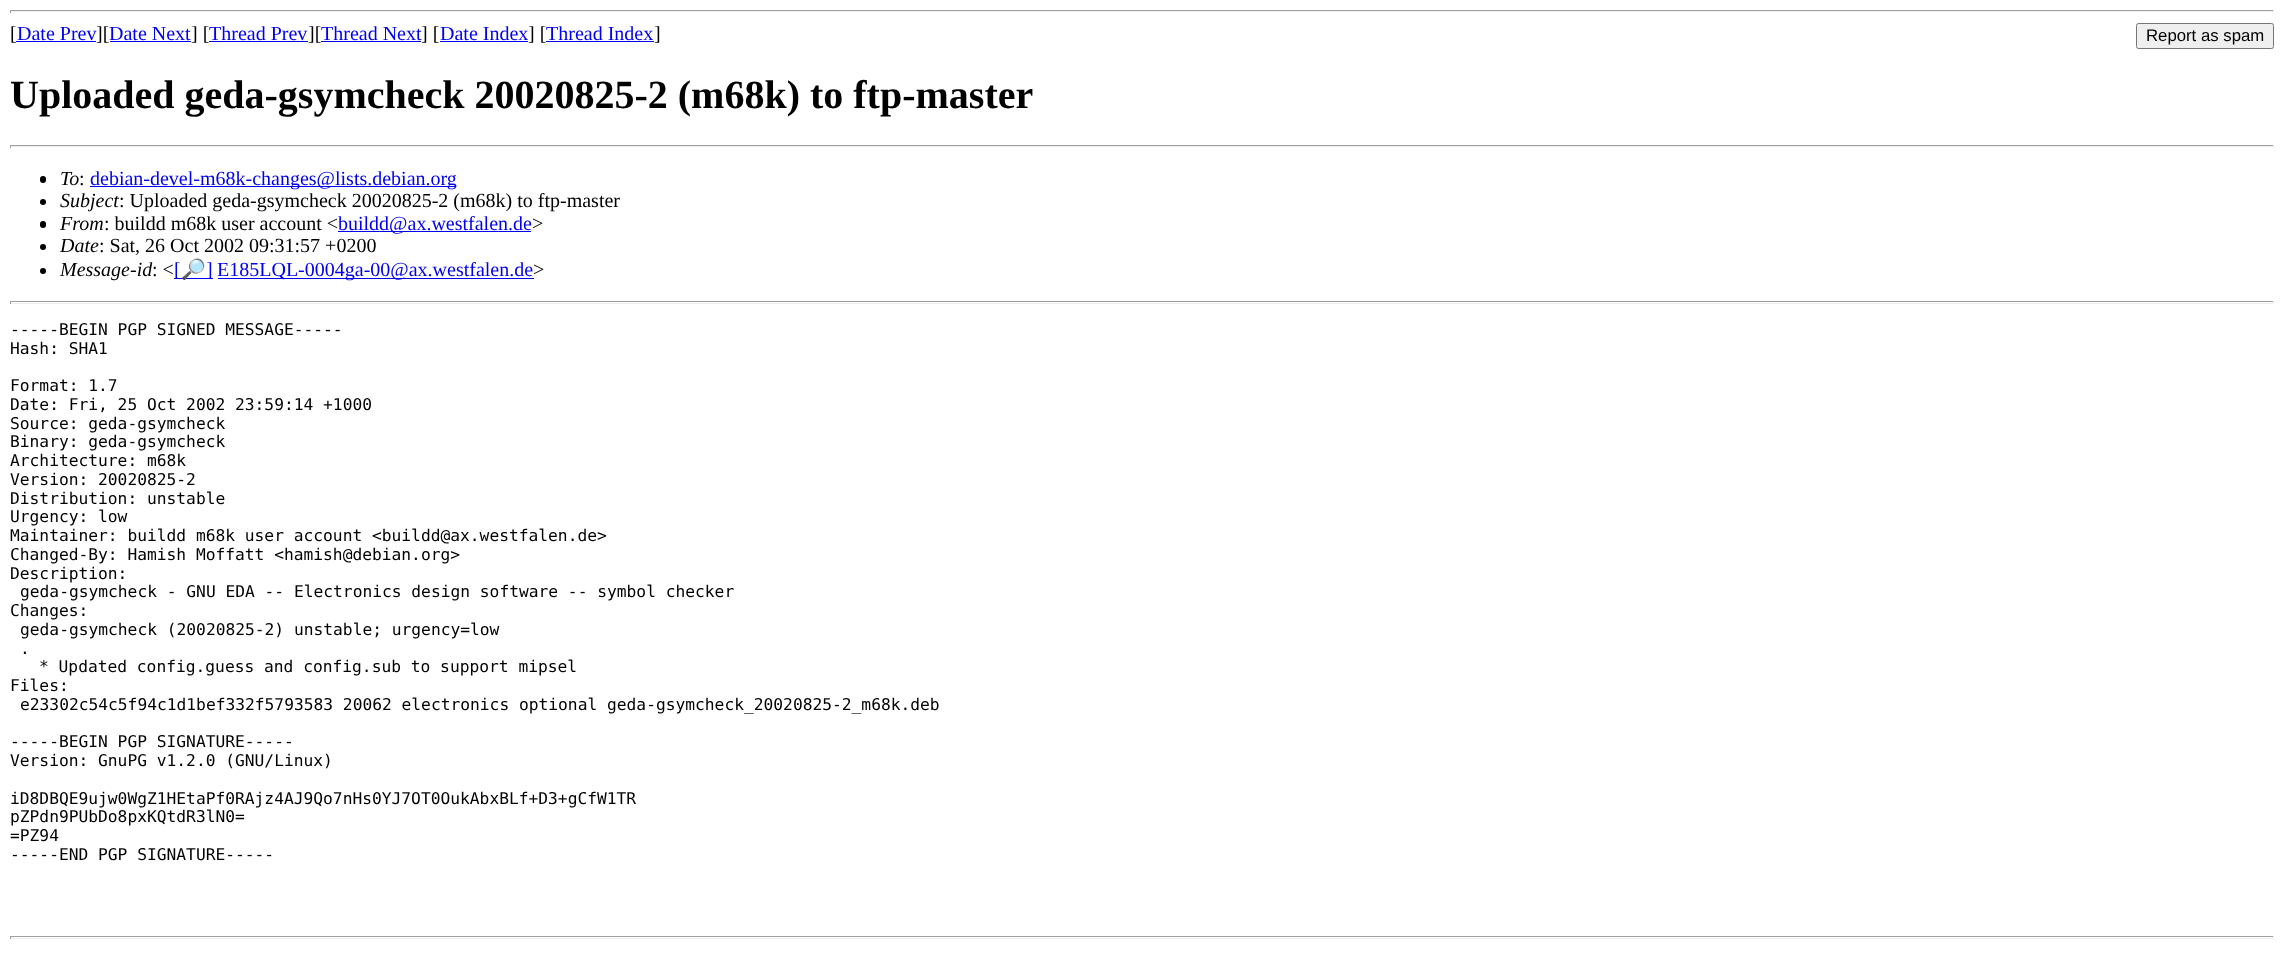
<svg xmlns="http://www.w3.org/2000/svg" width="2283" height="954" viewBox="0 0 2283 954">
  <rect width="100%" height="100%" fill="rgb(255,255,255)"/>
  <rect x="10" y="10" width="2264" height="1" fill="rgb(159,159,159)"/>
  <rect x="2273" y="10" width="1" height="3" fill="rgb(238,238,238)"/>
  <rect x="10" y="11" width="2264" height="1" fill="rgb(238,238,238)"/>
  <rect x="10" y="10" width="1" height="3" fill="rgb(159,159,159)"/>
  <text x="10" y="40" font-family="Liberation Serif" font-size="20" fill="rgb(0,0,0)">[</text>
  <text x="17" y="40" font-family="Liberation Serif" font-size="20" fill="rgb(0,0,238)">Date Prev</text>
  <rect x="16" y="41" width="80" height="1" fill="rgb(0,0,238)"/>
  <text x="96" y="40" font-family="Liberation Serif" font-size="20" fill="rgb(0,0,0)">][</text>
  <text x="109" y="40" font-family="Liberation Serif" font-size="20" fill="rgb(0,0,238)">Date Next</text>
  <rect x="110" y="41" width="81" height="1" fill="rgb(0,0,238)"/>
  <text x="191" y="40" font-family="Liberation Serif" font-size="20" fill="rgb(0,0,0)">] [</text>
  <text x="209" y="40" font-family="Liberation Serif" font-size="20" fill="rgb(0,0,238)">Thread Prev</text>
  <rect x="209" y="41" width="99" height="1" fill="rgb(0,0,238)"/>
  <text x="308" y="40" font-family="Liberation Serif" font-size="20" fill="rgb(0,0,0)">][</text>
  <text x="321" y="40" font-family="Liberation Serif" font-size="20" fill="rgb(0,0,238)">Thread Next</text>
  <rect x="321" y="41" width="100" height="1" fill="rgb(0,0,238)"/>
  <text x="421" y="40" font-family="Liberation Serif" font-size="20" fill="rgb(0,0,0)">] [</text>
  <text x="440" y="40" font-family="Liberation Serif" font-size="20" fill="rgb(0,0,238)">Date Index</text>
  <rect x="440" y="41" width="88" height="1" fill="rgb(0,0,238)"/>
  <text x="528" y="40" font-family="Liberation Serif" font-size="20" fill="rgb(0,0,0)">] [</text>
  <text x="546" y="40" font-family="Liberation Serif" font-size="20" fill="rgb(0,0,238)">Thread Index</text>
  <rect x="546" y="41" width="108" height="1" fill="rgb(0,0,238)"/>
  <text x="654" y="40" font-family="Liberation Serif" font-size="20" fill="rgb(0,0,0)">]</text>
  <rect x="2136.5" y="23.5" width="137" height="25" rx="2" fill="rgb(239,239,239)" stroke="rgb(118,118,118)"/>
  <text x="2146" y="41" font-family="Liberation Sans" font-size="16.75" fill="rgb(0,0,0)">Report as spam</text>
  <text x="10" y="108" font-family="Liberation Serif" font-size="40" font-weight="bold" fill="rgb(0,0,0)">Uploaded geda-gsymcheck 20020825-2 (m68k) to ftp-master</text>
  <rect x="10" y="145" width="2264" height="1" fill="rgb(159,159,159)"/>
  <rect x="2273" y="145" width="1" height="3" fill="rgb(238,238,238)"/>
  <rect x="10" y="146" width="2264" height="1" fill="rgb(238,238,238)"/>
  <rect x="10" y="145" width="1" height="3" fill="rgb(159,159,159)"/>
  <rect x="40" y="176" width="6" height="7" rx="3" fill="rgb(0,0,0)"/>
  <text x="60" y="185" font-family="Liberation Serif" font-size="20" font-style="italic" fill="rgb(0,0,0)">To</text>
  <text x="79" y="185" font-family="Liberation Serif" font-size="20" fill="rgb(0,0,0)">:</text>
  <rect x="90" y="186" width="366" height="1" fill="rgb(0,0,238)"/>
  <text x="90" y="185" font-family="Liberation Serif" font-size="20" fill="rgb(0,0,238)">debian-devel-m68k-changes@lists.debian.org</text>
  <circle cx="43" cy="202" r="3" fill="rgb(0,0,0)"/>
  <text x="60" y="207" font-family="Liberation Serif" font-size="20" font-style="italic" fill="rgb(0,0,0)">Subject</text>
  <text x="119" y="207" font-family="Liberation Serif" font-size="20" fill="rgb(0,0,0)">: Uploaded geda-gsymcheck 20020825-2 (m68k) to ftp-master</text>
  <rect x="40" y="221" width="6" height="7" rx="3" fill="rgb(0,0,0)"/>
  <text x="60" y="230" font-family="Liberation Serif" font-size="20" font-style="italic" fill="rgb(0,0,0)">From</text>
  <text x="104" y="230" font-family="Liberation Serif" font-size="20" fill="rgb(0,0,0)">: buildd m68k user account &lt;</text>
  <rect x="338" y="231" width="193" height="1" fill="rgb(0,0,238)"/>
  <text x="338" y="230" font-family="Liberation Serif" font-size="20" fill="rgb(0,0,238)">buildd@ax.westfalen.de</text>
  <text x="532" y="230" font-family="Liberation Serif" font-size="20" fill="rgb(0,0,0)">&gt;</text>
  <circle cx="43" cy="247" r="3" fill="rgb(0,0,0)"/>
  <text x="60" y="252" font-family="Liberation Serif" font-size="20" font-style="italic" fill="rgb(0,0,0)">Date</text>
  <text x="99" y="252" font-family="Liberation Serif" font-size="20" fill="rgb(0,0,0)">: Sat, 26 Oct 2002 09:31:57 +0200</text>
  <circle cx="43" cy="271" r="3" fill="rgb(0,0,0)"/>
  <text x="60" y="276" font-family="Liberation Serif" font-size="20" font-style="italic" fill="rgb(0,0,0)">Message-id</text>
  <text x="152" y="276" font-family="Liberation Serif" font-size="20" fill="rgb(0,0,0)">: &lt;</text>
  <rect x="174" y="278" width="39" height="1" fill="rgb(0,0,238)"/>
  <text x="174" y="276" font-family="Liberation Serif" font-size="20" fill="rgb(0,0,238)">[</text>
  <text x="181" y="276" font-family="Noto Color Emoji" font-size="20" fill="rgb(0,0,238)">🔎</text>
  <text x="206" y="276" font-family="Liberation Serif" font-size="20" fill="rgb(0,0,238)">]</text>
  <rect x="218" y="278" width="316" height="1" fill="rgb(0,0,238)"/>
  <text x="217" y="276" font-family="Liberation Serif" font-size="20" fill="rgb(0,0,238)">E185LQL-0004ga-00@ax.westfalen.de</text>
  <text x="533" y="276" font-family="Liberation Serif" font-size="20" fill="rgb(0,0,0)">&gt;</text>
  <rect x="10" y="301" width="2264" height="1" fill="rgb(159,159,159)"/>
  <rect x="2273" y="301" width="1" height="3" fill="rgb(238,238,238)"/>
  <rect x="10" y="303" width="2264" height="1" fill="rgb(238,238,238)"/>
  <rect x="10" y="301" width="1" height="3" fill="rgb(159,159,159)"/>
  <g font-family="DejaVu Sans Mono" font-size="16.25" fill="rgb(0,0,0)">
    <text>
      <tspan x="10" y="335">-----BEGIN PGP SIGNED MESSAGE-----</tspan>
      <tspan x="10" y="354">Hash: SHA1</tspan>
    </text>
    <text>
      <tspan x="10" y="391">Format: 1.7</tspan>
      <tspan x="10" y="410">Date: Fri, 25 Oct 2002 23:59:14 +1000</tspan>
      <tspan x="10" y="429">Source: geda-gsymcheck</tspan>
      <tspan x="10" y="447">Binary: geda-gsymcheck</tspan>
      <tspan x="10" y="466">Architecture: m68k</tspan>
      <tspan x="10" y="485">Version: 20020825-2</tspan>
      <tspan x="10" y="504">Distribution: unstable</tspan>
      <tspan x="10" y="522">Urgency: low</tspan>
      <tspan x="10" y="541">Maintainer: buildd m68k user account &lt;buildd@ax.westfalen.de&gt;</tspan>
      <tspan x="10" y="560">Changed-By: Hamish Moffatt &lt;hamish@debian.org&gt;</tspan>
      <tspan x="10" y="579">Description:</tspan>
    </text>
    <text x="20" y="597">geda-gsymcheck - GNU EDA -- Electronics design software -- symbol checker</text>
    <text x="10" y="616">Changes:</text>
    <text>
      <tspan x="20" y="635">geda-gsymcheck (20020825-2) unstable; urgency=low</tspan>
      <tspan x="20" y="654">.</tspan>
    </text>
    <text x="39" y="672">* Updated config.guess and config.sub to support mipsel</text>
    <text x="10" y="691">Files:</text>
    <text x="20" y="710">e23302c54c5f94c1d1bef332f5793583 20062 electronics optional geda-gsymcheck_20020825-2_m68k.deb</text>
    <text>
      <tspan x="10" y="747">-----BEGIN PGP SIGNATURE-----</tspan>
      <tspan x="10" y="766">Version: GnuPG v1.2.0 (GNU/Linux)</tspan>
    </text>
    <text>
      <tspan x="10" y="804">iD8DBQE9ujw0WgZ1HEtaPf0RAjz4AJ9Qo7nHs0YJ7OT0OukAbxBLf+D3+gCfW1TR</tspan>
      <tspan x="10" y="822">pZPdn9PUbDo8pxKQtdR3lN0=</tspan>
      <tspan x="10" y="841">=PZ94</tspan>
      <tspan x="10" y="860">-----END PGP SIGNATURE-----</tspan>
    </text>
  </g>
  <rect x="10" y="936" width="2264" height="1" fill="rgb(159,159,159)"/>
  <rect x="2273" y="936" width="1" height="3" fill="rgb(238,238,238)"/>
  <rect x="10" y="938" width="2264" height="1" fill="rgb(238,238,238)"/>
  <rect x="10" y="936" width="1" height="3" fill="rgb(159,159,159)"/>
</svg>
